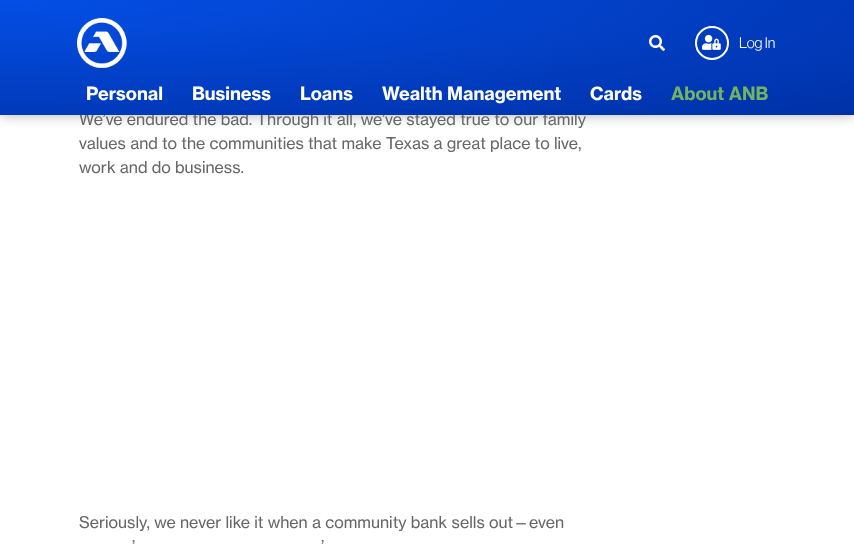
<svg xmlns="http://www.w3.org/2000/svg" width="854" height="548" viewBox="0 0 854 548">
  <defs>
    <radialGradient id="g1" gradientUnits="userSpaceOnUse" cx="0" cy="0" r="1" gradientTransform="matrix(1208 0 0 163 0 0)"><stop offset="0" stop-color="rgb(4,79,230)"/><stop offset="1" stop-color="rgb(0,49,167)"/></radialGradient>
  </defs>
  <rect width="100%" height="100%" fill="rgb(255,255,255)"/>
  <rect x="0" y="0" width="854" height="115" fill="rgba(0,0,0,0.3)" filter="blur(6.5px)"/>
  <text x="79" y="125" font-family="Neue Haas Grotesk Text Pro" font-size="16" fill="rgb(102,102,102)">We’ve endured the bad. Through it all, we’ve stayed true to our family</text>
  <rect x="0" y="0" width="854" height="115" fill="url(#g1)"/>
  <image x="77" y="18" width="50" height="50" href="pic1.png"/>
  <image x="649" y="35" width="16" height="16" href="pic2.png"/>
  <circle cx="712" cy="43" r="16" fill="none" stroke="rgb(255,255,255)" stroke-width="2"/>
  <image x="702" y="34" width="19" height="16" href="pic3.png"/>
  <text x="739" y="48" font-family="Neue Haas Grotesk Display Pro" font-size="15" fill="rgb(255,255,255)">Log In</text>
  <g font-family="Neue Haas Grotesk Text Pro" font-size="18" font-weight="bold" fill="rgb(255,255,255)">
    <text x="86" y="100">Personal</text>
    <text x="192" y="100">Business</text>
    <text x="300" y="100">Loans</text>
    <text x="382" y="100">Wealth Management</text>
    <text x="590" y="100">Cards</text>
  </g>
  <text x="671" y="100" font-family="Neue Haas Grotesk Text Pro" font-size="18" font-weight="bold" fill="rgb(114,181,94)">About ANB</text>
  <g font-family="Neue Haas Grotesk Text Pro" font-size="16" fill="rgb(102,102,102)">
    <text>
      <tspan x="79" y="149">values and to the communities that make Texas a great place to live,</tspan>
      <tspan x="79" y="173">work and do business.</tspan>
    </text>
    <text x="79" y="528">Seriously, we never like it when a community bank sells out—even</text>
    <text x="132" y="552">’</text>
    <text x="321" y="552">’</text>
  </g>
</svg>
